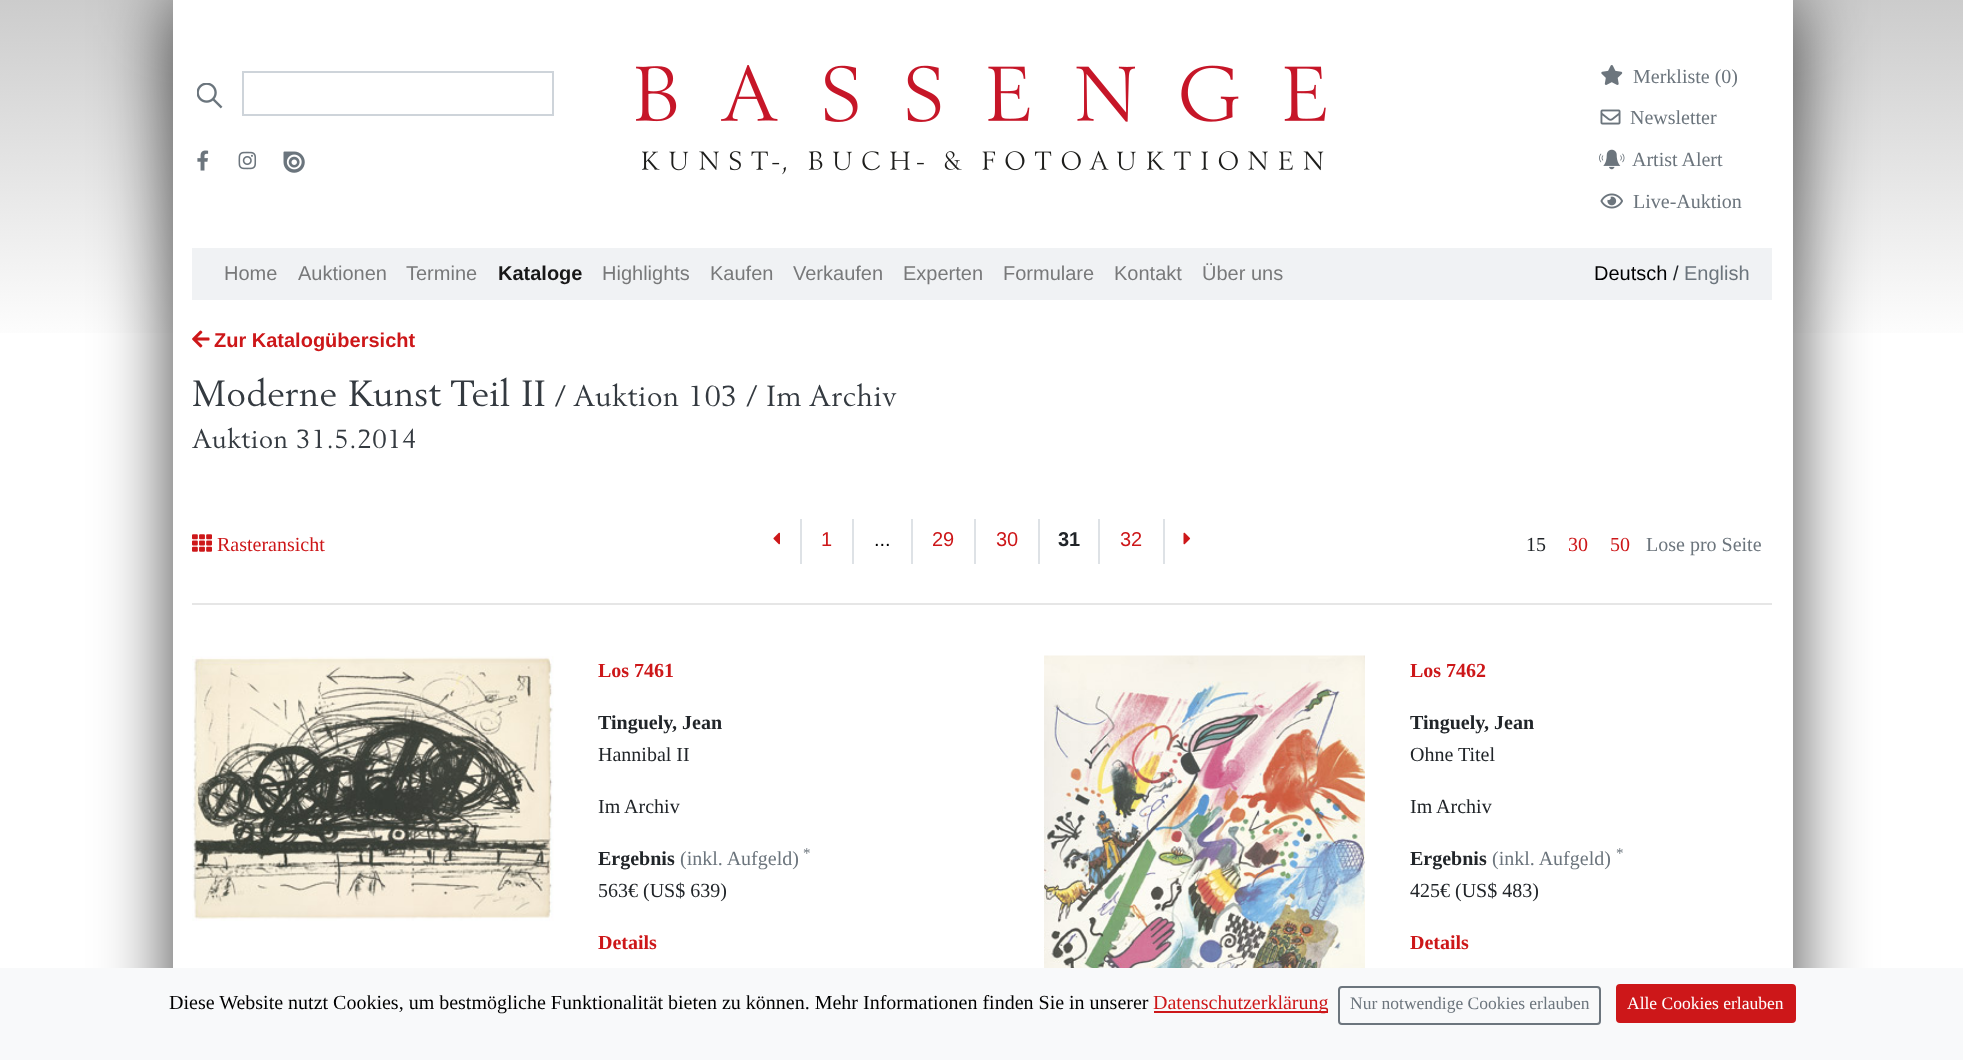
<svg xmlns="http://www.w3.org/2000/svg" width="1963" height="1060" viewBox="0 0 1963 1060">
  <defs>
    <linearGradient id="g1" gradientUnits="userSpaceOnUse" x1="982" y1="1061" x2="982" y2="0"><stop offset="0" stop-color="rgb(255,255,255)"/><stop offset="0.67" stop-color="rgb(255,255,255)"/><stop offset="1" stop-color="rgb(204,204,204)"/></linearGradient>
  </defs>
  <rect width="100%" height="100%" fill="rgb(255,255,255)"/>
  <rect x="0" y="0" width="1963" height="333" fill="url(#g1)"/>
  <rect x="173" y="0" width="1620" height="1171" fill="rgba(0,0,0,0.75)" filter="blur(37px)"/>
  <rect x="173" y="0" width="1620" height="968" fill="rgb(255,255,255)"/>
  <image x="197" y="83" width="26" height="26" href="pic1.png"/>
  <rect x="243" y="72" width="310" height="43" fill="none" stroke="rgb(206,212,218)" stroke-width="2"/>
  <image x="197" y="150" width="12" height="21" href="pic2.png"/>
  <image x="238" y="151" width="19" height="19" href="pic3.png"/>
  <image x="283" y="151" width="22" height="22" href="pic4.png"/>
  <image x="636" y="65" width="690" height="110" href="pic5.png"/>
  <image x="1601" y="65" width="22" height="20" href="pic6.png"/>
  <text x="1633" y="83" font-family="Liberation Serif" font-size="20" fill="rgb(108,117,125)">Merkliste (0)</text>
  <image x="1600" y="109" width="21" height="16" href="pic7.png"/>
  <text x="1630" y="124" font-family="Liberation Serif" font-size="20" fill="rgb(108,117,125)">Newsletter</text>
  <image x="1599" y="149" width="26" height="21" href="pic8.png"/>
  <text x="1632" y="166" font-family="Liberation Serif" font-size="20" fill="rgb(108,117,125)">Artist Alert</text>
  <image x="1600" y="193" width="23" height="16" href="pic9.png"/>
  <text x="1633" y="208" font-family="Liberation Serif" font-size="20" fill="rgb(108,117,125)">Live-Auktion</text>
  <rect x="192" y="248" width="1580" height="52" fill="rgb(240,242,244)"/>
  <g font-family="Liberation Sans" font-size="20" fill="rgb(120,121,122)">
    <text x="224" y="280">Home</text>
    <text x="298" y="280">Auktionen</text>
    <text x="406" y="280">Termine</text>
  </g>
  <text x="498" y="280" font-family="Liberation Sans" font-size="20" font-weight="bold" fill="rgb(24,24,24)">Kataloge</text>
  <g font-family="Liberation Sans" font-size="20" fill="rgb(120,121,122)">
    <text x="602" y="280">Highlights</text>
    <text x="710" y="280">Kaufen</text>
    <text x="793" y="280">Verkaufen</text>
    <text x="903" y="280">Experten</text>
    <text x="1003" y="280">Formulare</text>
    <text x="1114" y="280">Kontakt</text>
    <text x="1202" y="280">Über uns</text>
  </g>
  <text x="1594" y="280" font-family="Liberation Sans" font-size="20" fill="rgb(0,0,0)">Deutsch</text>
  <text x="1673" y="280" font-family="Liberation Sans" font-size="20" fill="rgb(33,37,41)">/</text>
  <text x="1684" y="280" font-family="Liberation Sans" font-size="20" fill="rgb(108,117,125)">English</text>
  <image x="192" y="330" width="18" height="18" href="pic10.png"/>
  <text x="214" y="347" font-family="Liberation Sans" font-size="20" font-weight="bold" fill="rgb(205,23,25)">Zur Katalogübersicht</text>
  <text x="192" y="406" font-family="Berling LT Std" font-size="36" letter-spacing="0.6" fill="rgb(52,58,64)">Moderne Kunst Teil II</text>
  <text x="555" y="406" font-family="Berling LT Std" font-size="28.75" letter-spacing="0.6" fill="rgb(52,58,64)">/ Auktion 103 / Im Archiv</text>
  <text x="192" y="448" font-family="Berling LT Std" font-size="26" letter-spacing="0.6" fill="rgb(52,58,64)">Auktion 31.5.2014</text>
  <image x="192" y="534" width="20" height="18" href="pic11.png"/>
  <text x="217" y="551" font-family="Liberation Serif" font-size="20" fill="rgb(205,23,25)">Rasteransicht</text>
  <image x="773" y="532" width="7" height="13" href="pic12.png"/>
  <rect x="800" y="519" width="2" height="45" fill="rgb(222,226,230)"/>
  <text x="821" y="546" font-family="Liberation Sans" font-size="20" fill="rgb(205,23,25)">1</text>
  <rect x="852" y="519" width="2" height="45" fill="rgb(222,226,230)"/>
  <text x="874" y="546" font-family="Liberation Sans" font-size="20" fill="rgb(0,0,0)">...</text>
  <rect x="911" y="519" width="2" height="45" fill="rgb(222,226,230)"/>
  <text x="932" y="546" font-family="Liberation Sans" font-size="20" fill="rgb(205,23,25)">29</text>
  <rect x="1038" y="519" width="2" height="45" fill="rgb(222,226,230)"/>
  <rect x="974" y="519" width="2" height="45" fill="rgb(222,226,230)"/>
  <text x="996" y="546" font-family="Liberation Sans" font-size="20" fill="rgb(205,23,25)">30</text>
  <text x="1058" y="546" font-family="Liberation Sans" font-size="20" font-weight="bold" fill="rgb(33,37,41)">31</text>
  <rect x="1098" y="519" width="2" height="45" fill="rgb(222,226,230)"/>
  <text x="1120" y="546" font-family="Liberation Sans" font-size="20" fill="rgb(205,23,25)">32</text>
  <rect x="1163" y="519" width="2" height="45" fill="rgb(222,226,230)"/>
  <image x="1183" y="532" width="8" height="13" href="pic13.png"/>
  <text x="1526" y="551" font-family="Liberation Serif" font-size="20" fill="rgb(33,37,41)">15</text>
  <g font-family="Liberation Serif" font-size="20" fill="rgb(205,23,25)">
    <text x="1568" y="551">30</text>
    <text x="1610" y="551">50</text>
  </g>
  <text x="1646" y="551" font-family="Liberation Serif" font-size="20" fill="rgb(108,117,125)">Lose pro Seite</text>
  <rect x="192" y="603" width="1580" height="2" fill="rgb(230,230,230)"/>
  <image x="192" y="656" width="362" height="265" href="pic14.png"/>
  <text x="598" y="677" font-family="Liberation Serif" font-size="20" font-weight="bold" fill="rgb(205,23,25)">Los 7461</text>
  <text x="598" y="729" font-family="Liberation Serif" font-size="20" font-weight="bold" fill="rgb(33,37,41)">Tinguely, Jean</text>
  <g font-family="Liberation Serif" font-size="20" fill="rgb(33,37,41)">
    <text x="598" y="761">Hannibal II</text>
    <text x="598" y="813">Im Archiv</text>
  </g>
  <text x="598" y="865" font-family="Liberation Serif" font-size="20" font-weight="bold" fill="rgb(33,37,41)">Ergebnis</text>
  <text x="680" y="865" font-family="Liberation Serif" font-size="20" fill="rgb(108,117,125)">(inkl. Aufgeld)</text>
  <text x="803" y="858" font-family="Liberation Serif" font-size="15" fill="rgb(108,117,125)">*</text>
  <text x="598" y="897" font-family="Liberation Serif" font-size="20" fill="rgb(33,37,41)">563€ (US$ 639)</text>
  <text x="598" y="949" font-family="Liberation Serif" font-size="20" font-weight="bold" fill="rgb(205,23,25)">Details</text>
  <image x="1044" y="655" width="321" height="313" href="pic15.png"/>
  <text x="1410" y="677" font-family="Liberation Serif" font-size="20" font-weight="bold" fill="rgb(205,23,25)">Los 7462</text>
  <text x="1410" y="729" font-family="Liberation Serif" font-size="20" font-weight="bold" fill="rgb(33,37,41)">Tinguely, Jean</text>
  <g font-family="Liberation Serif" font-size="20" fill="rgb(33,37,41)">
    <text x="1410" y="761">Ohne Titel</text>
    <text x="1410" y="813">Im Archiv</text>
  </g>
  <text x="1410" y="865" font-family="Liberation Serif" font-size="20" font-weight="bold" fill="rgb(33,37,41)">Ergebnis</text>
  <text x="1492" y="865" font-family="Liberation Serif" font-size="20" fill="rgb(108,117,125)">(inkl. Aufgeld)</text>
  <text x="1616" y="858" font-family="Liberation Serif" font-size="15" fill="rgb(108,117,125)">*</text>
  <text x="1410" y="897" font-family="Liberation Serif" font-size="20" fill="rgb(33,37,41)">425€ (US$ 483)</text>
  <text x="1410" y="949" font-family="Liberation Serif" font-size="20" font-weight="bold" fill="rgb(205,23,25)">Details</text>
  <rect x="0" y="968" width="1963" height="92" fill="rgb(248,249,250)"/>
  <text x="169" y="1009" font-family="Liberation Serif" font-size="20" fill="rgb(0,0,0)">Diese Website nutzt Cookies, um bestmögliche Funktionalität bieten zu können. Mehr Informationen finden Sie in unserer</text>
  <rect x="1154" y="1011" width="174" height="2" fill="rgb(205,23,25)"/>
  <text x="1153" y="1009" font-family="Liberation Serif" font-size="20" fill="rgb(205,23,25)">Datenschutzerklärung</text>
  <rect x="1339" y="987" width="261" height="37" rx="3" fill="none" stroke="rgb(108,117,125)" stroke-width="2"/>
  <text x="1350" y="1009" font-family="Liberation Serif" font-size="17.5" fill="rgb(108,117,125)">Nur notwendige Cookies erlauben</text>
  <rect x="1617" y="985" width="178" height="37" rx="3" fill="rgb(205,23,25)" stroke="rgb(205,23,25)" stroke-width="2"/>
  <text x="1627" y="1009" font-family="Liberation Serif" font-size="17.5" fill="rgb(255,255,255)">Alle Cookies erlauben</text>
</svg>
